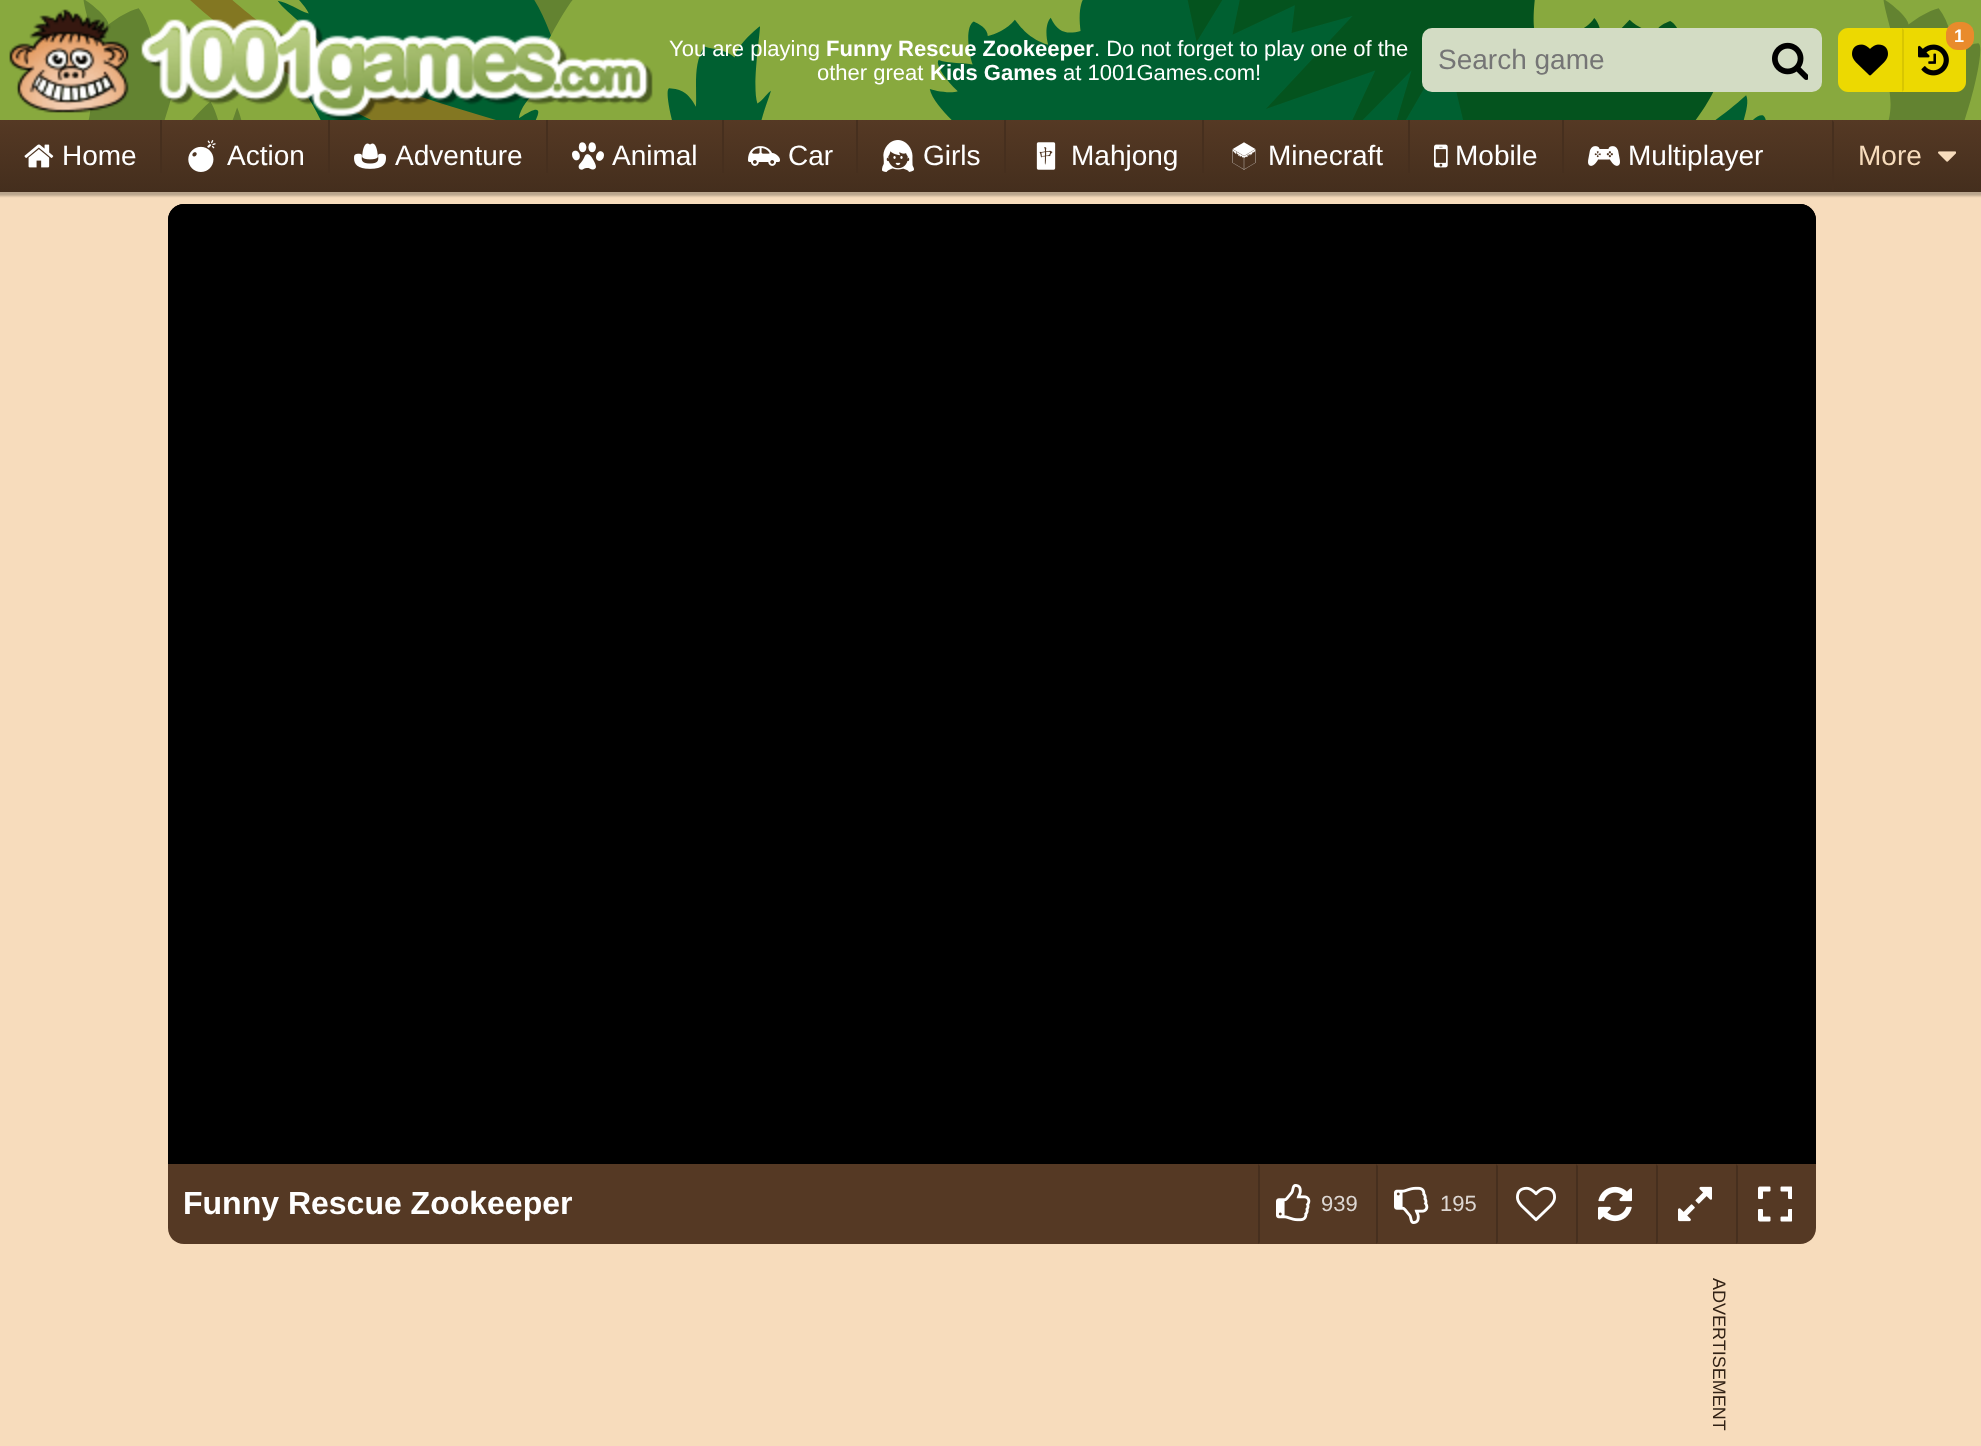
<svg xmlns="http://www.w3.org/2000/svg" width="1981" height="1446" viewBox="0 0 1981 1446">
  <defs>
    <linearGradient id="g1" gradientUnits="userSpaceOnUse" x1="991" y1="120" x2="991" y2="192"><stop offset="0" stop-color="rgb(85,57,36)"/><stop offset="1" stop-color="rgb(68,46,29)"/></linearGradient>
  </defs>
  <rect width="100%" height="100%" fill="rgb(247,220,188)"/>
  <rect x="-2" y="120" width="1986" height="76" fill="rgba(0,0,0,0.25)" filter="blur(1px)"/>
  <rect x="81" y="0" width="1900" height="120" fill="rgb(99,131,49)"/>
  <image x="0" y="0" width="1981" height="120" href="pic1.png"/>
  <image x="9" y="9" width="644" height="111" href="pic2.png"/>
  <path d="M1848 28H1902V92H1848C1842.5 92 1838 87.5 1838 82V38C1838 32.5 1842.5 28 1848 28Z" fill="rgb(236,217,1)"/>
  <image x="1852" y="44" width="36" height="32" href="pic3.png"/>
  <path d="M1902 28H1956C1961.5 28 1966 32.5 1966 38V82C1966 87.5 1961.5 92 1956 92H1902Z" fill="rgb(236,217,1)"/>
  <path d="M1902 28V92L1904 90V30Z" fill="rgb(216,198,1)"/>
  <image x="1918" y="44" width="31" height="32" href="pic4.png"/>
  <rect x="1946" y="22" width="28" height="28" rx="12" fill="rgb(233,139,44)"/>
  <text x="1954" y="42" font-family="Liberation Sans" font-size="18" font-weight="bold" fill="rgb(255,255,255)">1</text>
  <text x="669" y="56" font-family="Liberation Sans" font-size="22" fill="rgb(255,255,255)">You are playing</text>
  <text x="826" y="56" font-family="Liberation Sans" font-size="22" font-weight="bold" fill="rgb(255,255,255)">Funny Rescue Zookeeper</text>
  <g font-family="Liberation Sans" font-size="22" fill="rgb(255,255,255)">
    <text x="1094" y="56">. Do not forget to play one of the</text>
    <text x="817" y="80">other great</text>
  </g>
  <text x="930" y="80" font-family="Liberation Sans" font-size="22" font-weight="bold" fill="rgb(255,255,255)">Kids Games</text>
  <text x="1063" y="80" font-family="Liberation Sans" font-size="22" fill="rgb(255,255,255)">at 1001Games.com!</text>
  <rect x="1422" y="28" width="400" height="64" rx="10" fill="rgb(211,220,196)"/>
  <text x="1438" y="69" font-family="Liberation Sans" font-size="28" fill="rgb(117,117,117)">Search game</text>
  <image x="1772" y="42" width="36" height="38" href="pic5.png"/>
  <rect x="0" y="120" width="1981" height="72" fill="url(#g1)"/>
  <image x="24" y="144" width="30" height="24" href="pic6.png"/>
  <text x="62" y="165" font-family="Liberation Sans" font-size="28" fill="rgb(255,255,255)">Home</text>
  <rect x="160" y="120" width="2" height="53" fill="rgb(70,47,30)"/>
  <image x="188" y="140" width="28" height="32" href="pic7.png"/>
  <text x="227" y="165" font-family="Liberation Sans" font-size="28" fill="rgb(255,255,255)">Action</text>
  <rect x="328" y="120" width="2" height="53" fill="rgb(70,47,30)"/>
  <image x="354" y="143" width="32" height="26" href="pic8.png"/>
  <text x="395" y="165" font-family="Liberation Sans" font-size="28" fill="rgb(255,255,255)">Adventure</text>
  <rect x="546" y="120" width="2" height="53" fill="rgb(70,47,30)"/>
  <image x="572" y="142" width="32" height="28" href="pic9.png"/>
  <text x="612" y="165" font-family="Liberation Sans" font-size="28" fill="rgb(255,255,255)">Animal</text>
  <rect x="722" y="120" width="2" height="53" fill="rgb(70,47,30)"/>
  <image x="748" y="146" width="32" height="20" href="pic10.png"/>
  <text x="788" y="165" font-family="Liberation Sans" font-size="28" fill="rgb(255,255,255)">Car</text>
  <rect x="856" y="120" width="2" height="53" fill="rgb(70,47,30)"/>
  <image x="882" y="140" width="32" height="32" href="pic11.png"/>
  <text x="923" y="165" font-family="Liberation Sans" font-size="28" fill="rgb(255,255,255)">Girls</text>
  <rect x="1004" y="120" width="2" height="53" fill="rgb(70,47,30)"/>
  <image x="1036" y="142" width="20" height="28" href="pic12.png"/>
  <text x="1071" y="165" font-family="Liberation Sans" font-size="28" fill="rgb(255,255,255)">Mahjong</text>
  <rect x="1202" y="120" width="2" height="53" fill="rgb(70,47,30)"/>
  <image x="1232" y="142" width="24" height="28" href="pic13.png"/>
  <text x="1268" y="165" font-family="Liberation Sans" font-size="28" fill="rgb(255,255,255)">Minecraft</text>
  <rect x="1408" y="120" width="2" height="53" fill="rgb(70,47,30)"/>
  <image x="1434" y="144" width="14" height="24" href="pic14.png"/>
  <text x="1455" y="165" font-family="Liberation Sans" font-size="28" fill="rgb(255,255,255)">Mobile</text>
  <rect x="1562" y="120" width="2" height="53" fill="rgb(70,47,30)"/>
  <image x="1588" y="146" width="32" height="20" href="pic15.png"/>
  <text x="1628" y="165" font-family="Liberation Sans" font-size="28" fill="rgb(255,255,255)">Multiplayer</text>
  <path d="M1832 192V120L1834 122V190Z" fill="rgb(70,47,30)"/>
  <text x="1858" y="165" font-family="Liberation Sans" font-size="28" fill="rgb(247,220,188)">More</text>
  <image x="1938" y="151" width="18" height="11" href="pic16.png"/>
  <path d="M184 204H1800C1809 204 1816 211 1816 220V1164H168V220C168 211 175 204 184 204Z" fill="rgb(0,0,0)"/>
  <image x="168" y="204" width="1648" height="16" href="pic17.png"/>
  <path d="M168 1164H1816V1228C1816 1237 1809 1244 1800 1244H184C175 1244 168 1237 168 1228Z" fill="rgb(85,57,36)"/>
  <text x="183" y="1214" font-family="Liberation Sans" font-size="32" font-weight="bold" fill="rgb(255,255,255)">Funny Rescue Zookeeper</text>
  <path d="M1258 1244V1164L1260 1166V1242Z" fill="rgb(70,47,30)"/>
  <image x="1276" y="1184" width="35" height="38" href="pic18.png"/>
  <text x="1321" y="1211" font-family="Liberation Sans" font-size="22" fill="rgb(221,215,211)">939</text>
  <path d="M1376 1244V1164L1378 1166V1242Z" fill="rgb(70,47,30)"/>
  <image x="1394" y="1186" width="35" height="38" href="pic19.png"/>
  <text x="1440" y="1211" font-family="Liberation Sans" font-size="22" fill="rgb(221,215,211)">195</text>
  <path d="M1496 1244V1164L1498 1166V1242Z" fill="rgb(70,47,30)"/>
  <image x="1516" y="1186" width="40" height="36" href="pic20.png"/>
  <path d="M1576 1244V1164L1578 1166V1242Z" fill="rgb(70,47,30)"/>
  <image x="1598" y="1186" width="34" height="36" href="pic21.png"/>
  <path d="M1656 1244V1164L1658 1166V1242Z" fill="rgb(70,47,30)"/>
  <image x="1678" y="1186" width="34" height="36" href="pic22.png"/>
  <path d="M1736 1164V1244L1738 1242V1166Z" fill="rgb(70,47,30)"/>
  <image x="1758" y="1186" width="34" height="36" href="pic23.png"/>
  <text x="1713" y="1278" transform="rotate(90 1713 1278)" font-family="Liberation Sans" font-size="18" fill="rgb(49,33,21)">ADVERTISEMENT</text>
</svg>
